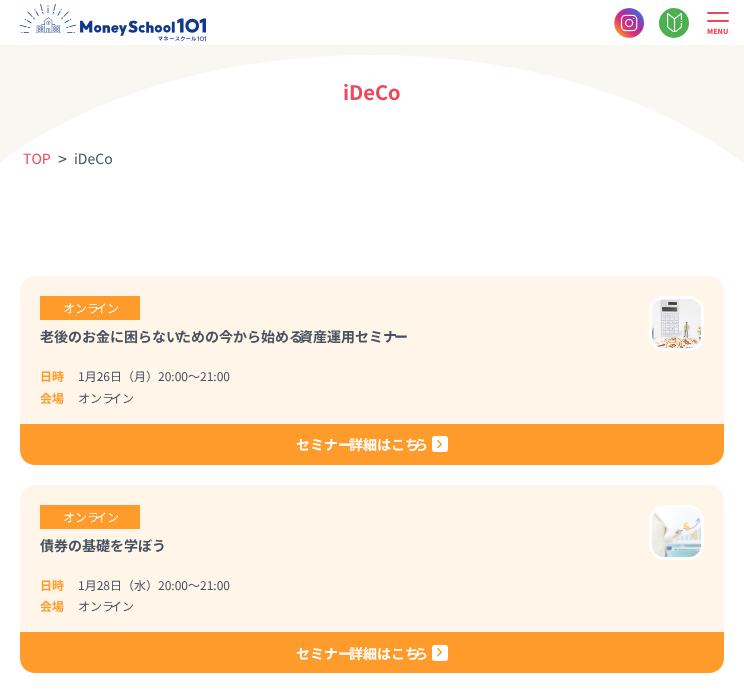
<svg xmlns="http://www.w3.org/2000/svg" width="744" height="693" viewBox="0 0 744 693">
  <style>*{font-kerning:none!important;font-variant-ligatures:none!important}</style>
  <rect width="100%" height="100%" fill="rgb(255,255,255)"/>
  <image x="20" y="4" width="186" height="37" href="pic1.png"/>
  <image x="614" y="8" width="30" height="30" href="pic2.png"/>
  <circle cx="674" cy="23" r="15" fill="rgb(76,175,80)"/>
  <image x="667" y="13" width="15" height="19" href="pic3.png"/>
  <rect x="707" y="12" width="22" height="2" rx="1" fill="rgb(240,70,90)"/>
  <rect x="707" y="20" width="22" height="2" rx="1" fill="rgb(240,70,90)"/>
  <text x="707" y="34" font-family="Noto Sans JP" font-size="7" font-weight="900" fill="rgb(240,70,90)">MENU</text>
  <rect x="0" y="45" width="744" height="7" fill="rgb(249,247,242)"/>
  <path d="M-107 52V350C-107 184 106 55 371 55C635 55 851 184 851 350V52Z" fill="rgb(249,247,242)"/>
  <text x="343" y="100" font-family="Noto Sans JP" font-size="20" font-weight="bold" fill="rgb(240,70,90)">iDeCo</text>
  <text x="23" y="164" font-family="Noto Sans JP" font-size="14" fill="rgb(240,70,90)">TOP</text>
  <text x="58" y="165" font-family="Noto Sans JP" font-size="16" fill="rgb(70,82,96)">&gt;</text>
  <text x="74" y="164" font-family="Noto Sans JP" font-size="14" fill="rgb(70,82,96)">iDeCo</text>
  <rect x="20" y="276" width="704" height="189" rx="15" fill="rgb(255,245,233)"/>
  <rect x="40" y="296" width="100" height="24" fill="rgb(255,155,43)"/>
  <text x="63" y="313" font-family="Noto Sans JP" font-size="12" fill="rgb(255,255,255)">オンラ</text>
  <text x="95" y="313" font-family="Noto Sans JP" font-size="12" fill="rgb(255,255,255)">イン</text>
  <rect x="650.5" y="297.5" width="52" height="52" rx="13.5" fill="none" stroke="rgb(255,255,255)" stroke-width="3"/>
  <image x="652" y="299" width="49" height="49" href="pic4.png"/>
  <text x="40" y="342" font-family="Noto Sans JP" font-size="14" font-weight="bold" fill="rgb(70,82,96)">老後のお金に困らない</text>
  <text x="177" y="342" font-family="Noto Sans JP" font-size="14" font-weight="bold" fill="rgb(70,82,96)">ための今から始める</text>
  <text x="299" y="342" font-family="Noto Sans JP" font-size="14" font-weight="bold" fill="rgb(70,82,96)">資産運用セミナ</text>
  <text x="394" y="342" font-family="Noto Sans JP" font-size="14" font-weight="bold" fill="rgb(70,82,96)">ー</text>
  <text x="40" y="381" font-family="Noto Sans JP" font-size="12" font-weight="bold" fill="rgb(255,155,43)">日時</text>
  <text x="78" y="381" font-family="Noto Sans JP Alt" font-size="12" fill="rgb(70,82,96)">1月26日（月）</text>
  <text x="146" y="381" font-family="Noto Sans JP Alt" font-size="12" fill="rgb(70,82,96)">　20:00～21:00</text>
  <text x="40" y="403" font-family="Noto Sans JP" font-size="12" font-weight="bold" fill="rgb(255,155,43)">会場</text>
  <text x="78" y="403" font-family="Noto Sans JP" font-size="12" fill="rgb(70,82,96)">オンラ</text>
  <text x="110" y="403" font-family="Noto Sans JP" font-size="12" fill="rgb(70,82,96)">イン</text>
  <path d="M20 423H724V450C724 458.5 717.5 465 709 465H35C26.5 465 20 458.5 20 450Z" fill="rgb(255,155,43)"/>
  <rect x="20" y="423" width="704" height="1" fill="rgb(255,255,255)"/>
  <text x="296" y="450" font-family="Noto Sans JP" font-size="14" font-weight="bold" fill="rgb(255,255,255)">セミナー</text>
  <text x="349" y="450" font-family="Noto Sans JP" font-size="14" font-weight="bold" fill="rgb(255,255,255)">詳細はこち</text>
  <text x="414" y="450" font-family="Noto Sans JP" font-size="14" font-weight="bold" fill="rgb(255,255,255)">ら</text>
  <rect x="432" y="436" width="16" height="16" rx="3" fill="rgb(255,255,255)"/>
  <image x="437" y="440" width="5" height="8" href="pic5.png"/>
  <rect x="20" y="485" width="704" height="188" rx="15" fill="rgb(255,245,233)"/>
  <rect x="40" y="505" width="100" height="24" fill="rgb(255,155,43)"/>
  <text x="63" y="522" font-family="Noto Sans JP" font-size="12" fill="rgb(255,255,255)">オンラ</text>
  <text x="95" y="522" font-family="Noto Sans JP" font-size="12" fill="rgb(255,255,255)">イン</text>
  <rect x="650.5" y="506.5" width="52" height="52" rx="13.5" fill="none" stroke="rgb(255,255,255)" stroke-width="3"/>
  <image x="652" y="508" width="49" height="49" href="pic6.png"/>
  <text x="40" y="551" font-family="Noto Sans JP" font-size="14" font-weight="bold" fill="rgb(70,82,96)">債券の基礎を学ぼう</text>
  <text x="40" y="590" font-family="Noto Sans JP" font-size="12" font-weight="bold" fill="rgb(255,155,43)">日時</text>
  <text x="78" y="590" font-family="Noto Sans JP Alt" font-size="12" fill="rgb(70,82,96)">1月28日（水）</text>
  <text x="146" y="590" font-family="Noto Sans JP Alt" font-size="12" fill="rgb(70,82,96)">　20:00～21:00</text>
  <text x="40" y="611" font-family="Noto Sans JP" font-size="12" font-weight="bold" fill="rgb(255,155,43)">会場</text>
  <text x="78" y="611" font-family="Noto Sans JP" font-size="12" fill="rgb(70,82,96)">オンラ</text>
  <text x="110" y="611" font-family="Noto Sans JP" font-size="12" fill="rgb(70,82,96)">イン</text>
  <path d="M20 631H724V658C724 666.5 717.5 673 709 673H35C26.5 673 20 666.5 20 658Z" fill="rgb(255,155,43)"/>
  <rect x="20" y="631" width="704" height="1" fill="rgb(255,255,255)"/>
  <text x="296" y="659" font-family="Noto Sans JP" font-size="14" font-weight="bold" fill="rgb(255,255,255)">セミナー</text>
  <text x="349" y="659" font-family="Noto Sans JP" font-size="14" font-weight="bold" fill="rgb(255,255,255)">詳細はこち</text>
  <text x="414" y="659" font-family="Noto Sans JP" font-size="14" font-weight="bold" fill="rgb(255,255,255)">ら</text>
  <rect x="432" y="645" width="16" height="16" rx="3" fill="rgb(255,255,255)"/>
  <image x="437" y="648" width="5" height="9" href="pic7.png"/>
</svg>
